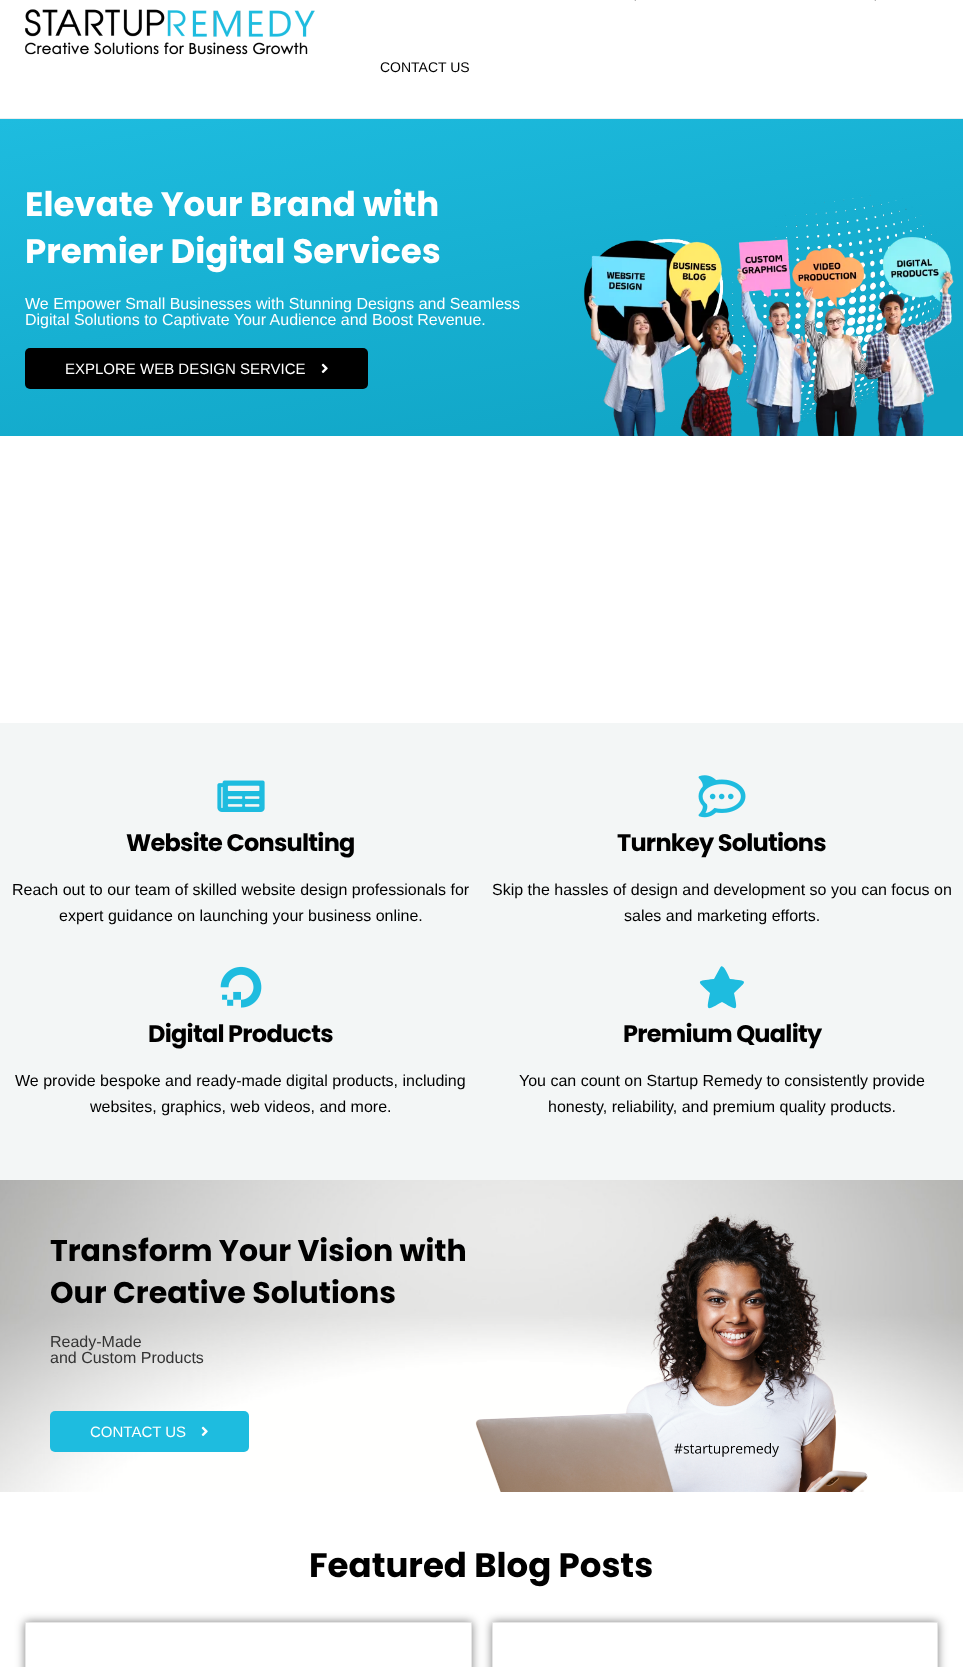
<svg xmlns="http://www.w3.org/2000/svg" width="963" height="1667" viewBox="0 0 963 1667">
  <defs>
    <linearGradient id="g1" gradientUnits="userSpaceOnUse" x1="440" y1="41" x2="523" y2="514"><stop offset="0" stop-color="rgb(30,188,223)"/><stop offset="0.88" stop-color="rgb(17,166,199)"/></linearGradient>
    <clipPath id="clip1"><path d="M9 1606H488V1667H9ZM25 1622H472V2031H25Z" clip-rule="evenodd"/></clipPath>
    <clipPath id="clip2"><path d="M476 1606H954V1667H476ZM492 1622H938V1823H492Z" clip-rule="evenodd"/></clipPath>
  </defs>
  <rect width="100%" height="100%" fill="rgb(255,255,255)"/>
  <rect x="0" y="118" width="963" height="1" fill="rgb(237,237,237)"/>
  <image x="25" y="9" width="290" height="46" href="pic1.png"/>
  <image x="634" y="0" width="2" height="1" href="pic2.png"/>
  <image x="874" y="0" width="2" height="1" href="pic2.png"/>
  <text x="380" y="72" font-family="Liberation Sans" font-size="14" fill="rgb(0,0,0)">CONTACT US</text>
  <rect x="0" y="119" width="963" height="317" fill="url(#g1)"/>
  <g font-family="Poppins" font-size="34" font-weight="bold" fill="rgb(255,255,255)">
    <text>
      <tspan x="25" y="216">Elevate Your Brand with</tspan>
      <tspan x="25" y="263">Premier Digital Services</tspan>
    </text>
  </g>
  <g font-family="Liberation Sans" font-size="16" fill="rgb(255,255,255)">
    <text>
      <tspan x="25" y="309">We Empower Small Businesses with Stunning Designs and Seamless</tspan>
      <tspan x="25" y="325">Digital Solutions to Captivate Your Audience and Boost Revenue.</tspan>
    </text>
  </g>
  <rect x="25" y="348" width="343" height="41" rx="5" fill="rgb(0,0,0)"/>
  <text x="65" y="374" font-family="Liberation Sans" font-size="15" fill="rgb(255,255,255)">EXPLORE WEB DESIGN SERVICE</text>
  <image x="321" y="363" width="7" height="10" href="pic3.png"/>
  <image x="583" y="195" width="371" height="241" href="pic4.png"/>
  <rect x="0" y="723" width="963" height="457" fill="rgb(243,246,246)"/>
  <image x="217" y="780" width="48" height="32" href="pic5.png"/>
  <text x="126" y="851" font-family="Poppins" font-size="24" font-weight="bold" letter-spacing="-0.75" fill="rgb(0,0,0)">Website Consulting</text>
  <g font-family="Liberation Sans" font-size="16" fill="rgb(0,0,0)">
    <text x="12" y="895">Reach out to our team of skilled website design professionals for</text>
    <text x="59" y="921">expert guidance on launching your business online.</text>
  </g>
  <image x="698" y="775" width="48" height="43" href="pic6.png"/>
  <text x="617" y="851" font-family="Poppins" font-size="24" font-weight="bold" letter-spacing="-0.75" fill="rgb(0,0,0)">Turnkey Solutions</text>
  <g font-family="Liberation Sans" font-size="16" fill="rgb(0,0,0)">
    <text x="492" y="895">Skip the hassles of design and development so you can focus on</text>
    <text x="624" y="921">sales and marketing efforts.</text>
  </g>
  <image x="220" y="966" width="42" height="42" href="pic7.png"/>
  <text x="148" y="1042" font-family="Poppins" font-size="24" font-weight="bold" letter-spacing="-0.75" fill="rgb(0,0,0)">Digital Products</text>
  <g font-family="Liberation Sans" font-size="16" fill="rgb(0,0,0)">
    <text x="15" y="1086">We provide bespoke and ready-made digital products, including</text>
    <text x="90" y="1112">websites, graphics, web videos, and more.</text>
  </g>
  <path d="M720 968C723 961 729 978 730 979C748 981 748 980 734 993C738 1012 738 1011 722 1002C706 1011 706 1012 710 993C696 980 696 981 714 979Z" fill="rgb(30,188,223)"/>
  <text x="623" y="1042" font-family="Poppins" font-size="24" font-weight="bold" letter-spacing="-0.75" fill="rgb(0,0,0)">Premium Quality</text>
  <g font-family="Liberation Sans" font-size="16" fill="rgb(0,0,0)">
    <text x="519" y="1086">You can count on Startup Remedy to consistently provide</text>
    <text x="548" y="1112">honesty, reliability, and premium quality products.</text>
  </g>
  <image x="0" y="1180" width="963" height="312" href="pic8.png"/>
  <g font-family="Poppins" font-size="30" font-weight="bold" fill="rgb(0,0,0)">
    <text>
      <tspan x="50" y="1261">Transform Your Vision with</tspan>
      <tspan x="50" y="1303">Our Creative Solutions</tspan>
    </text>
  </g>
  <g font-family="Liberation Sans" font-size="16" fill="rgb(51,51,51)">
    <text>
      <tspan x="50" y="1347">Ready-Made</tspan>
      <tspan x="50" y="1363">and Custom Products</tspan>
    </text>
  </g>
  <rect x="50" y="1411" width="199" height="41" rx="5" fill="rgb(30,188,223)"/>
  <text x="90" y="1437" font-family="Liberation Sans" font-size="15" fill="rgb(255,255,255)">CONTACT US</text>
  <image x="201" y="1426" width="7" height="10" href="pic9.png"/>
  <text x="309" y="1577" font-family="Poppins" font-size="34" font-weight="bold" fill="rgb(0,0,0)">Featured Blog Posts</text>
  <g clip-path="url(#clip1)">
    <rect x="25" y="1622" width="447" height="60" fill="rgba(0,0,0,0.5)" filter="blur(5px)"/>
  </g>
  <rect x="25.5" y="1622.5" width="446" height="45" fill="none" stroke="rgb(230,230,230)"/>
  <g clip-path="url(#clip2)">
    <rect x="492" y="1622" width="446" height="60" fill="rgba(0,0,0,0.5)" filter="blur(5px)"/>
  </g>
  <rect x="492.5" y="1622.5" width="445" height="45" fill="none" stroke="rgb(230,230,230)"/>
</svg>
